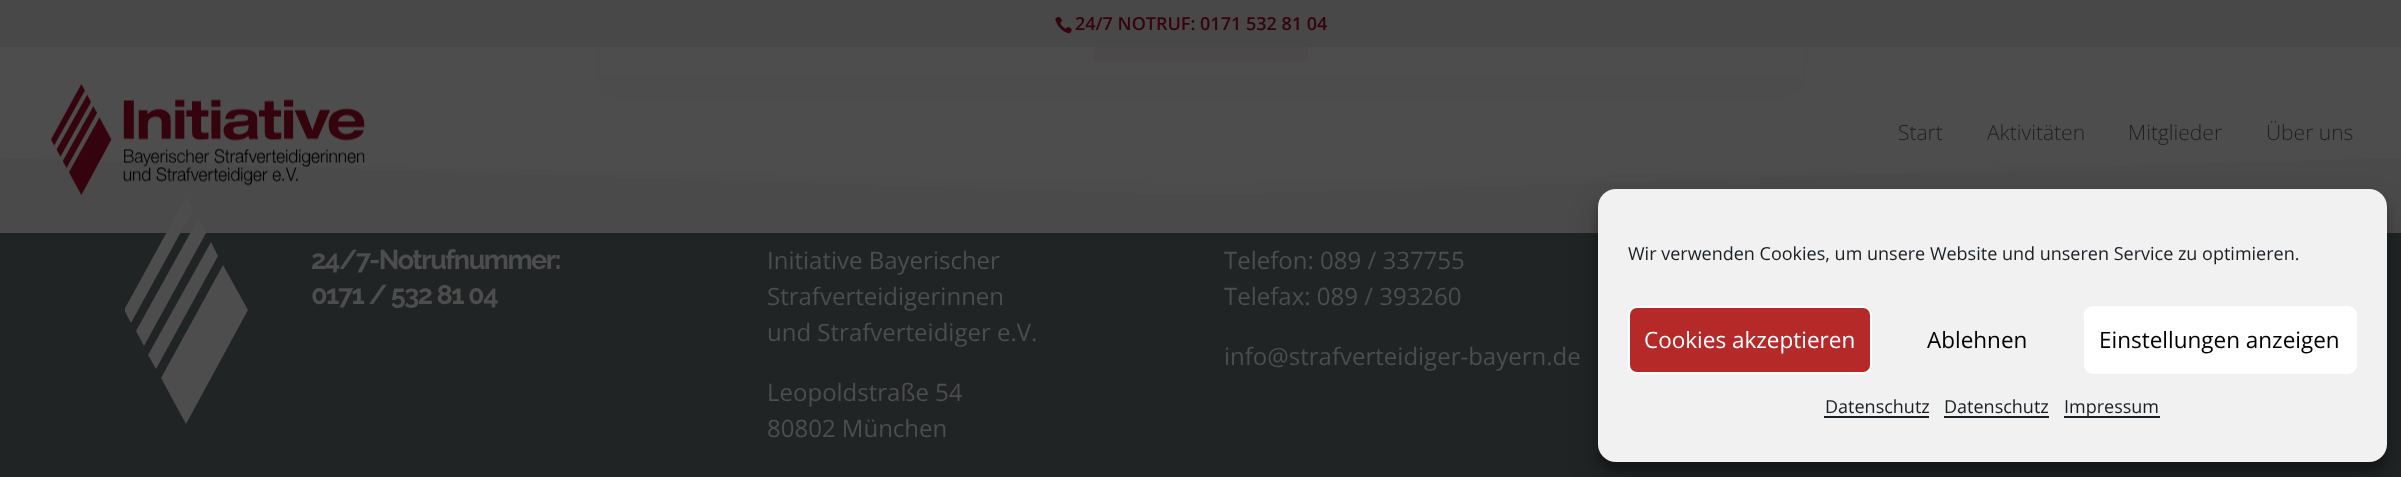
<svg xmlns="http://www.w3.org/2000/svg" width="2401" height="477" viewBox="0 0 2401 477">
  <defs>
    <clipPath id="clip1"><path d="M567 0H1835V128H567ZM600-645H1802V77H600Z" clip-rule="evenodd"/></clipPath>
    <clipPath id="clip2"><rect x="125" y="197" width="123" height="228"/></clipPath>
  </defs>
  <rect width="100%" height="100%" fill="rgb(77,77,77)"/>
  <g clip-path="url(#clip1)">
    <rect x="609" y="-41" width="1184" height="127" fill="rgba(0,0,0,0.3)" filter="blur(13.5px)"/>
  </g>
  <rect x="1094" y="0" width="214" height="62" rx="5" fill="rgb(53,3,13)"/>
  <rect x="0" y="0" width="2401" height="47" fill="rgb(72,72,72)"/>
  <image x="1055" y="16" width="17" height="18" href="pic1.png"/>
  <text x="1075" y="30" font-family="Open Sans" font-size="18" font-weight="600" fill="rgb(53,3,13)">24/7 NOTRUF: 0171 532 81 04</text>
  <rect x="0" y="158" width="2401" height="319" fill="rgb(33,36,37)"/>
  <path d="M1201 195L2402 158H0Z" fill="rgb(55,56,57)"/>
  <path d="M1201 184L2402 158H0Z" fill="rgb(77,77,77)"/>
  <g clip-path="url(#clip2)">
    <path d="M131 323L193 210L186 197L124 310ZM144 346L206 233L198 219L136 331ZM156 369L218 256L211 242L148 355ZM248 310L223 265L161 378L186 424Z" fill="rgb(77,77,77)"/>
  </g>
  <rect x="0" y="47" width="2401" height="186" fill="rgba(77,77,77,0.95)"/>
  <image x="51" y="84" width="314" height="112" href="pic2.png"/>
  <g font-family="Open Sans" font-size="21" font-weight="300" fill="rgb(31,31,31)">
    <text x="1898" y="140">Start</text>
    <text x="1987" y="140">Aktivitäten</text>
    <text x="2128" y="140">Mitglieder</text>
    <text x="2266" y="140">Über uns</text>
  </g>
  <g font-family="Raleway" font-size="27" font-weight="bold" letter-spacing="-1.5" fill="rgb(77,77,77)">
    <text>
      <tspan x="311" y="269">24/7-Notrufnummer:</tspan>
      <tspan x="311" y="304">0171 / 532 81 04</tspan>
    </text>
  </g>
  <g font-family="Open Sans" font-size="24" fill="rgb(77,77,77)">
    <text>
      <tspan x="767" y="269">Initiative Bayerischer</tspan>
      <tspan x="767" y="305">Strafverteidigerinnen</tspan>
      <tspan x="767" y="341">und Strafverteidiger e.V.</tspan>
    </text>
    <text>
      <tspan x="767" y="401">Leopoldstraße 54</tspan>
      <tspan x="767" y="437">80802 München</tspan>
    </text>
    <text>
      <tspan x="1224" y="269">Telefon: 089 / 337755</tspan>
      <tspan x="1224" y="305">Telefax: 089 / 393260</tspan>
    </text>
    <text x="1224" y="365">info@strafverteidiger-bayern.de</text>
  </g>
  <rect x="1598" y="198" width="789" height="273" rx="18" fill="rgba(0,0,0,0.23)" filter="blur(4.5px)"/>
  <rect x="1598" y="204" width="789" height="273" rx="18" fill="rgba(0,0,0,0.19)" filter="blur(15px)"/>
  <rect x="1598" y="189" width="789" height="273" rx="18" fill="rgb(241,241,241)"/>
  <text x="1628" y="260" font-family="Open Sans" font-size="18" fill="rgb(25,30,35)">Wir verwenden Cookies, um unsere Website und unseren Service zu optimieren.</text>
  <rect x="1629" y="307" width="242" height="66" rx="8" fill="rgb(181,41,41)" stroke="rgb(255,255,255)" stroke-width="2"/>
  <text x="1644" y="348" font-family="Open Sans" font-size="22.5" fill="rgb(255,255,255)">Cookies akzeptieren</text>
  <text x="1927" y="348" font-family="Open Sans" font-size="22.5" fill="rgb(0,0,0)">Ablehnen</text>
  <rect x="2085" y="307" width="271" height="66" rx="8" fill="rgb(255,255,255)" stroke="rgb(255,255,255)" stroke-width="2"/>
  <text x="2099" y="348" font-family="Open Sans" font-size="22.5" fill="rgb(0,0,0)">Einstellungen anzeigen</text>
  <text x="1825" y="413" font-family="Open Sans" font-size="18" fill="rgb(25,30,35)">Datenschutz</text>
  <rect x="1824" y="416" width="105" height="2" fill="rgb(25,30,35)"/>
  <text x="1944" y="413" font-family="Open Sans" font-size="18" fill="rgb(25,30,35)">Datenschutz</text>
  <rect x="1944" y="416" width="105" height="2" fill="rgb(25,30,35)"/>
  <rect x="2064" y="416" width="96" height="2" fill="rgb(25,30,35)"/>
  <text x="2064" y="413" font-family="Open Sans" font-size="18" fill="rgb(25,30,35)">Impressum</text>
</svg>
